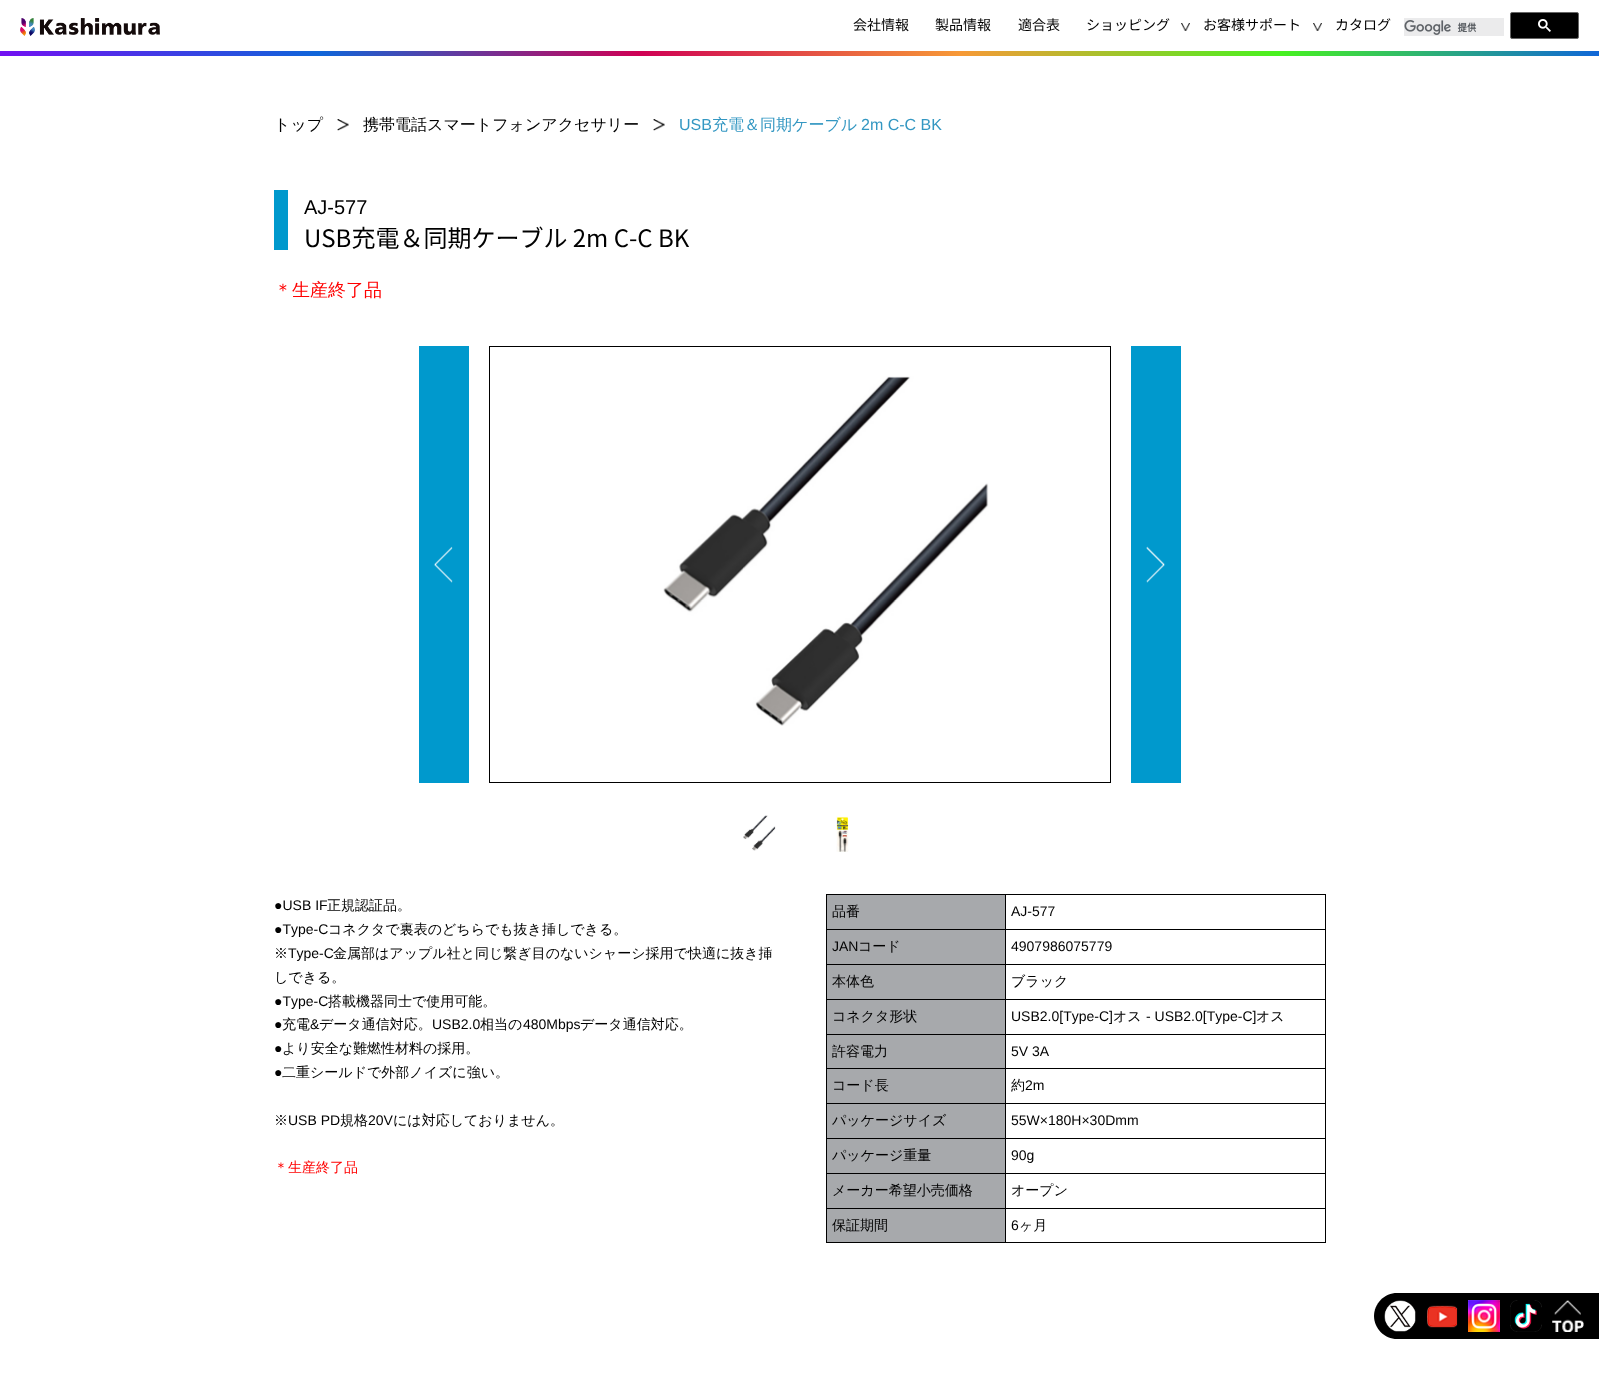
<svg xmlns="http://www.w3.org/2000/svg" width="1599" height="1389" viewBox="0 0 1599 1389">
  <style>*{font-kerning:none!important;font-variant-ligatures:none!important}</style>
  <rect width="100%" height="100%" fill="rgb(255,255,255)"/>
  <image x="0" y="51" width="1599" height="5" href="pic1.png"/>
  <image x="20" y="18" width="140" height="18" href="pic2.png"/>
  <g font-family="Noto Sans JP" font-size="14" fill="rgb(0,0,0)">
    <text x="853" y="30">会社情報</text>
    <text x="935" y="30">製品情報</text>
    <text x="1018" y="30">適合表</text>
    <text x="1086" y="30">ショッピング</text>
  </g>
  <image x="1181" y="23" width="9" height="8" href="pic3.png"/>
  <text x="1203" y="30" font-family="Noto Sans JP" font-size="14" fill="rgb(0,0,0)">お客様サポート</text>
  <image x="1313" y="23" width="9" height="8" href="pic3.png"/>
  <text x="1335" y="30" font-family="Noto Sans JP" font-size="14" fill="rgb(0,0,0)">カタログ</text>
  <rect x="1404" y="18" width="100" height="18" fill="rgb(235,235,236)"/>
  <image x="1404" y="20" width="73" height="15" href="pic4.png"/>
  <rect x="1510.5" y="12.5" width="68" height="26" rx="1.5" fill="rgb(0,0,0)" stroke="rgb(102,102,102)"/>
  <image x="1538" y="19" width="13" height="13" href="pic5.png"/>
  <text x="274" y="130" font-family="WenQuanYi Zen Hei" font-size="16" font-weight="500" fill="rgb(0,0,0)">トップ</text>
  <image x="337" y="119" width="12" height="12" href="pic6.png"/>
  <text x="363" y="130" font-family="WenQuanYi Zen Hei" font-size="16" font-weight="500" fill="rgb(0,0,0)">携帯電話スマートフォンアクセサリー</text>
  <image x="653" y="119" width="12" height="12" href="pic6.png"/>
  <text x="679" y="130" font-family="Liberation Sans" font-size="16" fill="rgb(51,151,194)">USB</text>
  <text x="712" y="130" font-family="WenQuanYi Zen Hei" font-size="16" font-weight="500" fill="rgb(51,151,194)">充電＆同期ケーブル</text>
  <text x="861" y="130" font-family="Liberation Sans" font-size="16" fill="rgb(51,151,194)">2m C-C BK</text>
  <rect x="274" y="190" width="14" height="60" fill="rgb(0,153,205)"/>
  <text x="304" y="214" font-family="Liberation Sans" font-size="20" fill="rgb(0,0,0)">AJ-577</text>
  <text x="304" y="247" font-family="Noto Sans JP" font-size="24" fill="rgb(0,0,0)">USB充電＆同期ケーブル 2m C-C BK</text>
  <text x="274" y="296" font-family="WenQuanYi Zen Hei" font-size="18" font-weight="500" fill="rgb(255,0,0)">＊生産終了品</text>
  <rect x="419" y="346" width="50" height="437" fill="rgb(0,153,205)"/>
  <image x="434" y="546" width="19" height="37" href="pic7.png"/>
  <rect x="489.5" y="346.5" width="621" height="436" fill="none" stroke="rgb(0,0,0)"/>
  <image x="663" y="376" width="326" height="350" href="pic8.png"/>
  <rect x="1131" y="346" width="50" height="437" fill="rgb(0,153,205)"/>
  <image x="1146" y="546" width="19" height="37" href="pic9.png"/>
  <image x="743" y="815" width="33" height="36" href="pic10.png"/>
  <image x="836" y="816" width="13" height="36" href="pic11.png"/>
  <text x="274" y="910" font-family="Liberation Sans" font-size="14" fill="rgb(0,0,0)">●USB IF</text>
  <text x="327" y="910" font-family="WenQuanYi Zen Hei" font-size="14" font-weight="500" fill="rgb(0,0,0)">正規認証品。</text>
  <text x="274" y="934" font-family="Liberation Sans" font-size="14" fill="rgb(0,0,0)">●Type-C</text>
  <g font-family="WenQuanYi Zen Hei" font-size="14" font-weight="500" fill="rgb(0,0,0)">
    <text x="328" y="934">コネクタで裏表のどちらでも抜き挿しできる。</text>
    <text x="274" y="958">※</text>
  </g>
  <text x="288" y="958" font-family="Liberation Sans" font-size="14" fill="rgb(0,0,0)">Type-C</text>
  <g font-family="WenQuanYi Zen Hei" font-size="14" font-weight="500" fill="rgb(0,0,0)">
    <text x="333" y="958">金属部はアップル社と同じ繋ぎ目のないシャーシ採用で快適に抜き挿</text>
    <text x="274" y="982">しできる。</text>
  </g>
  <text x="274" y="1006" font-family="Liberation Sans" font-size="14" fill="rgb(0,0,0)">●Type-C</text>
  <text x="328" y="1006" font-family="WenQuanYi Zen Hei" font-size="14" font-weight="500" fill="rgb(0,0,0)">搭載機器同士で使用可能。</text>
  <text x="274" y="1029" font-family="Liberation Sans" font-size="14" fill="rgb(0,0,0)">●</text>
  <text x="282" y="1029" font-family="WenQuanYi Zen Hei" font-size="14" font-weight="500" fill="rgb(0,0,0)">充電</text>
  <text x="310" y="1029" font-family="Liberation Sans" font-size="14" fill="rgb(0,0,0)">&amp;</text>
  <text x="319" y="1029" font-family="WenQuanYi Zen Hei" font-size="14" font-weight="500" fill="rgb(0,0,0)">データ通信対応。</text>
  <text x="432" y="1029" font-family="Liberation Sans" font-size="14" fill="rgb(0,0,0)">USB2.0</text>
  <text x="480" y="1029" font-family="WenQuanYi Zen Hei" font-size="14" font-weight="500" fill="rgb(0,0,0)">相当の</text>
  <text x="523" y="1029" font-family="Liberation Sans" font-size="14" fill="rgb(0,0,0)">480Mbps</text>
  <text x="580" y="1029" font-family="WenQuanYi Zen Hei" font-size="14" font-weight="500" fill="rgb(0,0,0)">データ通信対応。</text>
  <text x="274" y="1053" font-family="Liberation Sans" font-size="14" fill="rgb(0,0,0)">●</text>
  <text x="282" y="1053" font-family="WenQuanYi Zen Hei" font-size="14" font-weight="500" fill="rgb(0,0,0)">より安全な難燃性材料の採用。</text>
  <text x="274" y="1077" font-family="Liberation Sans" font-size="14" fill="rgb(0,0,0)">●</text>
  <g font-family="WenQuanYi Zen Hei" font-size="14" font-weight="500" fill="rgb(0,0,0)">
    <text x="282" y="1077">二重シールドで外部ノイズに強い。</text>
    <text x="274" y="1125">※</text>
  </g>
  <text x="288" y="1125" font-family="Liberation Sans" font-size="14" fill="rgb(0,0,0)">USB PD</text>
  <text x="340" y="1125" font-family="WenQuanYi Zen Hei" font-size="14" font-weight="500" fill="rgb(0,0,0)">規格</text>
  <text x="368" y="1125" font-family="Liberation Sans" font-size="14" fill="rgb(0,0,0)">20V</text>
  <text x="393" y="1125" font-family="WenQuanYi Zen Hei" font-size="14" font-weight="500" fill="rgb(0,0,0)">には対応しておりません。</text>
  <text x="274" y="1172" font-family="WenQuanYi Zen Hei" font-size="14" font-weight="500" fill="rgb(255,0,0)">＊生産終了品</text>
  <rect x="827" y="895" width="178" height="34" fill="rgb(167,169,172)"/>
  <rect x="1005" y="894" width="321" height="1" fill="rgb(0,0,0)"/>
  <rect x="1005" y="929" width="321" height="1" fill="rgb(0,0,0)"/>
  <rect x="1005" y="964" width="321" height="1" fill="rgb(0,0,0)"/>
  <rect x="1005" y="999" width="321" height="1" fill="rgb(0,0,0)"/>
  <rect x="1005" y="1034" width="321" height="1" fill="rgb(0,0,0)"/>
  <rect x="1005" y="1068" width="321" height="1" fill="rgb(0,0,0)"/>
  <rect x="1005" y="1103" width="321" height="1" fill="rgb(0,0,0)"/>
  <rect x="1005" y="1138" width="321" height="1" fill="rgb(0,0,0)"/>
  <rect x="1005" y="1173" width="321" height="1" fill="rgb(0,0,0)"/>
  <rect x="1005" y="1208" width="321" height="1" fill="rgb(0,0,0)"/>
  <rect x="1325" y="1208" width="1" height="35" fill="rgb(0,0,0)"/>
  <rect x="1005" y="1242" width="321" height="1" fill="rgb(0,0,0)"/>
  <rect x="1005" y="1208" width="1" height="35" fill="rgb(0,0,0)"/>
  <rect x="826" y="1208" width="180" height="1" fill="rgb(0,0,0)"/>
  <rect x="1005" y="1173" width="1" height="36" fill="rgb(0,0,0)"/>
  <rect x="826" y="1173" width="180" height="1" fill="rgb(0,0,0)"/>
  <rect x="1005" y="1138" width="1" height="36" fill="rgb(0,0,0)"/>
  <rect x="826" y="1138" width="180" height="1" fill="rgb(0,0,0)"/>
  <rect x="1005" y="1103" width="1" height="36" fill="rgb(0,0,0)"/>
  <rect x="826" y="1103" width="180" height="1" fill="rgb(0,0,0)"/>
  <rect x="1005" y="1068" width="1" height="36" fill="rgb(0,0,0)"/>
  <rect x="826" y="1068" width="180" height="1" fill="rgb(0,0,0)"/>
  <rect x="1005" y="1034" width="1" height="35" fill="rgb(0,0,0)"/>
  <rect x="826" y="1034" width="180" height="1" fill="rgb(0,0,0)"/>
  <rect x="1005" y="999" width="1" height="36" fill="rgb(0,0,0)"/>
  <rect x="826" y="999" width="180" height="1" fill="rgb(0,0,0)"/>
  <rect x="1005" y="964" width="1" height="36" fill="rgb(0,0,0)"/>
  <rect x="826" y="964" width="180" height="1" fill="rgb(0,0,0)"/>
  <rect x="1005" y="929" width="1" height="36" fill="rgb(0,0,0)"/>
  <rect x="826" y="929" width="180" height="1" fill="rgb(0,0,0)"/>
  <rect x="1005" y="894" width="1" height="36" fill="rgb(0,0,0)"/>
  <rect x="826" y="894" width="180" height="1" fill="rgb(0,0,0)"/>
  <rect x="826" y="1242" width="180" height="1" fill="rgb(0,0,0)"/>
  <rect x="826" y="1208" width="1" height="35" fill="rgb(0,0,0)"/>
  <rect x="826" y="1173" width="1" height="36" fill="rgb(0,0,0)"/>
  <rect x="826" y="1138" width="1" height="36" fill="rgb(0,0,0)"/>
  <rect x="826" y="1103" width="1" height="36" fill="rgb(0,0,0)"/>
  <rect x="826" y="1068" width="1" height="36" fill="rgb(0,0,0)"/>
  <rect x="826" y="1034" width="1" height="35" fill="rgb(0,0,0)"/>
  <rect x="826" y="999" width="1" height="36" fill="rgb(0,0,0)"/>
  <rect x="826" y="964" width="1" height="36" fill="rgb(0,0,0)"/>
  <rect x="826" y="929" width="1" height="36" fill="rgb(0,0,0)"/>
  <rect x="826" y="894" width="1" height="36" fill="rgb(0,0,0)"/>
  <text x="832" y="916" font-family="WenQuanYi Zen Hei" font-size="14" font-weight="500" fill="rgb(0,0,0)">品番</text>
  <rect x="1325" y="1173" width="1" height="36" fill="rgb(0,0,0)"/>
  <rect x="1325" y="1138" width="1" height="36" fill="rgb(0,0,0)"/>
  <rect x="1325" y="1103" width="1" height="36" fill="rgb(0,0,0)"/>
  <rect x="1325" y="1068" width="1" height="36" fill="rgb(0,0,0)"/>
  <rect x="1325" y="1034" width="1" height="35" fill="rgb(0,0,0)"/>
  <rect x="1325" y="999" width="1" height="36" fill="rgb(0,0,0)"/>
  <rect x="1325" y="964" width="1" height="36" fill="rgb(0,0,0)"/>
  <rect x="1325" y="929" width="1" height="36" fill="rgb(0,0,0)"/>
  <rect x="1325" y="894" width="1" height="36" fill="rgb(0,0,0)"/>
  <text x="1011" y="916" font-family="Liberation Sans" font-size="14" fill="rgb(0,0,0)">AJ-577</text>
  <rect x="827" y="930" width="178" height="34" fill="rgb(167,169,172)"/>
  <text x="832" y="951" font-family="Liberation Sans" font-size="14" fill="rgb(0,0,0)">JAN</text>
  <text x="858" y="951" font-family="WenQuanYi Zen Hei" font-size="14" font-weight="500" fill="rgb(0,0,0)">コード</text>
  <text x="1011" y="951" font-family="Liberation Sans" font-size="14" fill="rgb(0,0,0)">4907986075779</text>
  <rect x="827" y="965" width="178" height="34" fill="rgb(167,169,172)"/>
  <g font-family="WenQuanYi Zen Hei" font-size="14" font-weight="500" fill="rgb(0,0,0)">
    <text x="832" y="986">本体色</text>
    <text x="1011" y="986">ブラック</text>
  </g>
  <rect x="827" y="1000" width="178" height="34" fill="rgb(167,169,172)"/>
  <text x="832" y="1021" font-family="WenQuanYi Zen Hei" font-size="14" font-weight="500" fill="rgb(0,0,0)">コネクタ形状</text>
  <text x="1011" y="1021" font-family="Liberation Sans" font-size="14" fill="rgb(0,0,0)">USB2.0[Type-C]</text>
  <text x="1113" y="1021" font-family="WenQuanYi Zen Hei" font-size="14" font-weight="500" fill="rgb(0,0,0)">オス</text>
  <text x="1146" y="1021" font-family="Liberation Sans" font-size="14" fill="rgb(0,0,0)">- USB2.0[Type-C]</text>
  <text x="1256" y="1021" font-family="WenQuanYi Zen Hei" font-size="14" font-weight="500" fill="rgb(0,0,0)">オス</text>
  <rect x="827" y="1035" width="178" height="33" fill="rgb(167,169,172)"/>
  <text x="832" y="1056" font-family="WenQuanYi Zen Hei" font-size="14" font-weight="500" fill="rgb(0,0,0)">許容電力</text>
  <text x="1011" y="1056" font-family="Liberation Sans" font-size="14" fill="rgb(0,0,0)">5V 3A</text>
  <rect x="827" y="1069" width="178" height="34" fill="rgb(167,169,172)"/>
  <g font-family="WenQuanYi Zen Hei" font-size="14" font-weight="500" fill="rgb(0,0,0)">
    <text x="832" y="1090">コード長</text>
    <text x="1011" y="1090">約</text>
  </g>
  <text x="1025" y="1090" font-family="Liberation Sans" font-size="14" fill="rgb(0,0,0)">2m</text>
  <rect x="827" y="1104" width="178" height="34" fill="rgb(167,169,172)"/>
  <text x="832" y="1125" font-family="WenQuanYi Zen Hei" font-size="14" font-weight="500" fill="rgb(0,0,0)">パッケージサイズ</text>
  <text x="1011" y="1125" font-family="Liberation Sans" font-size="14" fill="rgb(0,0,0)">55W×180H×30Dmm</text>
  <rect x="827" y="1139" width="178" height="34" fill="rgb(167,169,172)"/>
  <text x="832" y="1160" font-family="WenQuanYi Zen Hei" font-size="14" font-weight="500" fill="rgb(0,0,0)">パッケージ重量</text>
  <text x="1011" y="1160" font-family="Liberation Sans" font-size="14" fill="rgb(0,0,0)">90g</text>
  <rect x="827" y="1174" width="178" height="34" fill="rgb(167,169,172)"/>
  <g font-family="WenQuanYi Zen Hei" font-size="14" font-weight="500" fill="rgb(0,0,0)">
    <text x="832" y="1195">メーカー希望小売価格</text>
    <text x="1011" y="1195">オープン</text>
  </g>
  <rect x="827" y="1209" width="178" height="33" fill="rgb(167,169,172)"/>
  <text x="832" y="1230" font-family="WenQuanYi Zen Hei" font-size="14" font-weight="500" fill="rgb(0,0,0)">保証期間</text>
  <text x="1011" y="1230" font-family="Liberation Sans" font-size="14" fill="rgb(0,0,0)">6</text>
  <text x="1019" y="1230" font-family="WenQuanYi Zen Hei" font-size="14" font-weight="500" fill="rgb(0,0,0)">ヶ月</text>
  <path d="M1397 1293H1599V1339H1397C1384.5 1339 1374 1328.5 1374 1316C1374 1303.5 1384.5 1293 1397 1293Z" fill="rgb(0,0,0)"/>
  <image x="1384" y="1300" width="32" height="32" href="pic12.png"/>
  <image x="1427" y="1305" width="31" height="23" href="pic13.png"/>
  <image x="1468" y="1300" width="32" height="32" href="pic14.png"/>
  <image x="1510" y="1300" width="32" height="32" href="pic15.png"/>
  <image x="1552" y="1300" width="32" height="32" href="pic16.png"/>
</svg>
